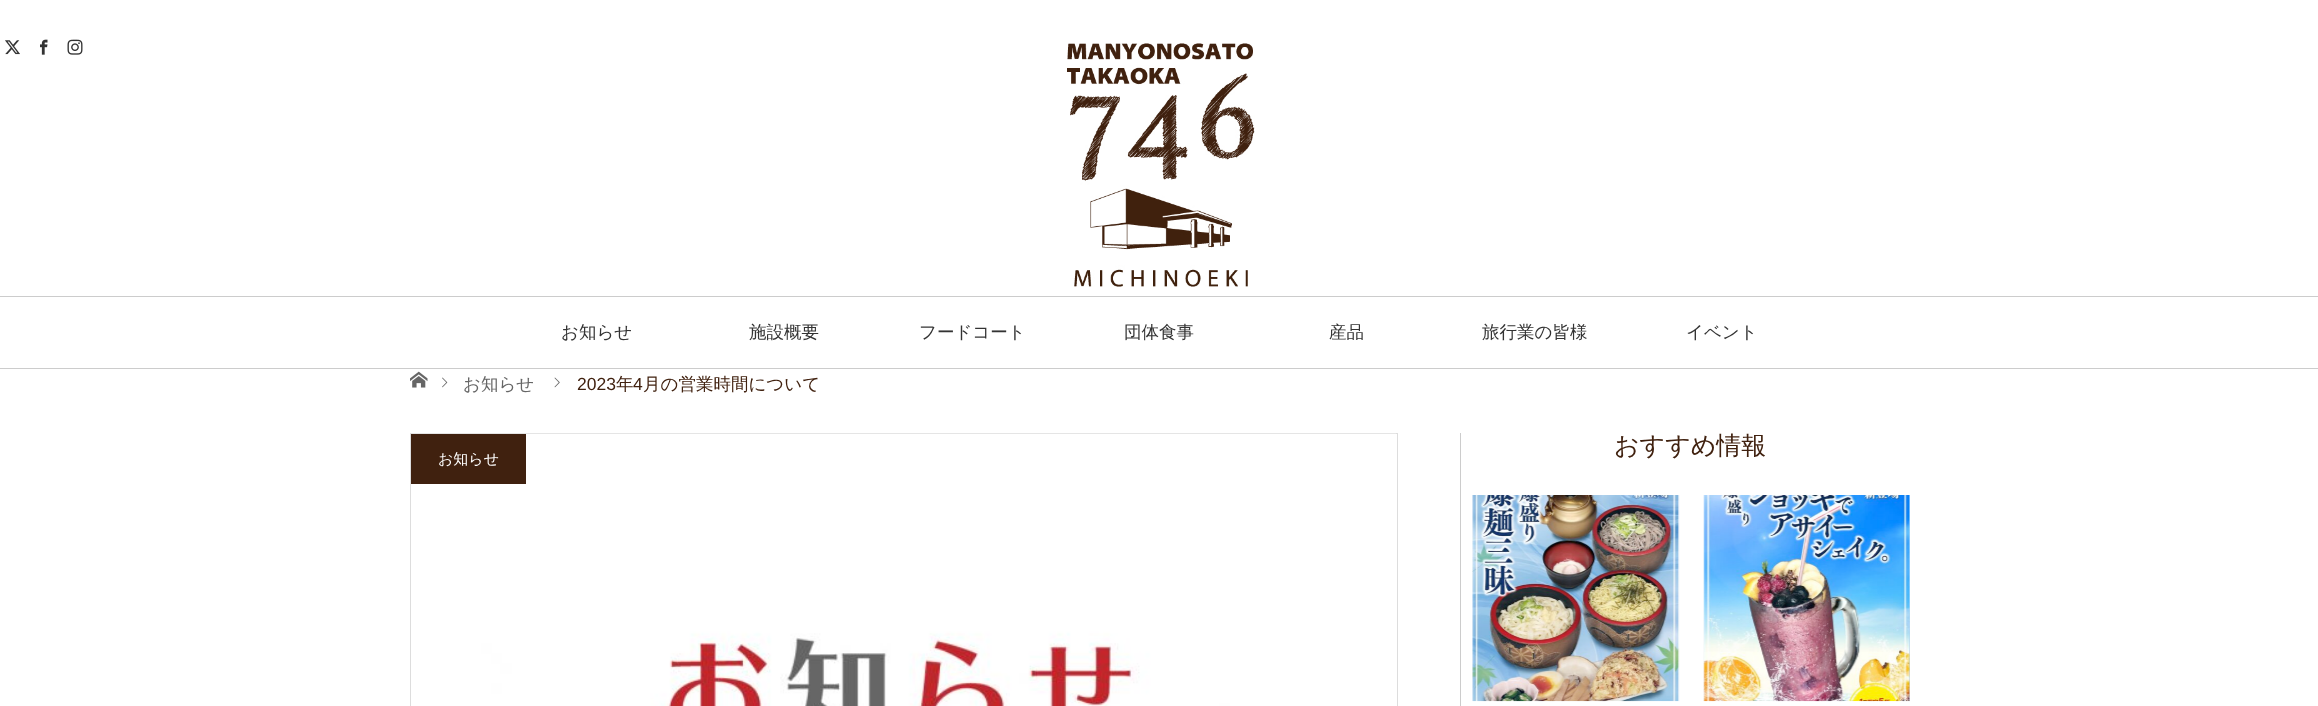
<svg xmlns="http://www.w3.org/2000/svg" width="2318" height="706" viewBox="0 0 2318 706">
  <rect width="100%" height="100%" fill="rgb(255,255,255)"/>
  <image x="5" y="40" width="15" height="15" href="pic1.png"/>
  <image x="40" y="39" width="8" height="16" href="pic2.png"/>
  <image x="67" y="39" width="16" height="16" href="pic3.png"/>
  <image x="1067" y="43" width="188" height="244" href="pic4.png"/>
  <rect x="0" y="296" width="2318" height="1" fill="rgb(204,204,204)"/>
  <rect x="0" y="368" width="2318" height="1" fill="rgb(204,204,204)"/>
  <g font-family="WenQuanYi Zen Hei" font-size="17.5" font-weight="500" fill="rgb(51,51,51)">
    <text x="561" y="338">お知らせ</text>
    <text x="749" y="338">施設概要</text>
    <text x="919" y="338">フードコート</text>
    <text x="1124" y="338">団体食事</text>
    <text x="1329" y="338">産品</text>
    <text x="1482" y="338">旅行業の皆様</text>
    <text x="1686" y="338">イベント</text>
  </g>
  <image x="410" y="371" width="18" height="17" href="pic5.png"/>
  <image x="442" y="377" width="6" height="11" href="pic6.png"/>
  <text x="463" y="390" font-family="WenQuanYi Zen Hei" font-size="17.5" font-weight="500" fill="rgb(102,102,102)">お知らせ</text>
  <image x="554" y="377" width="6" height="11" href="pic7.png"/>
  <text x="577" y="390" font-family="Liberation Sans" font-size="17.5" fill="rgb(64,33,15)">2023</text>
  <text x="616" y="390" font-family="WenQuanYi Zen Hei" font-size="17.5" font-weight="500" fill="rgb(64,33,15)">年</text>
  <text x="633" y="390" font-family="Liberation Sans" font-size="17.5" fill="rgb(64,33,15)">4</text>
  <text x="643" y="390" font-family="WenQuanYi Zen Hei" font-size="17.5" font-weight="500" fill="rgb(64,33,15)">月の営業時間について</text>
  <rect x="410.5" y="433.5" width="987" height="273" fill="none" stroke="rgb(221,221,221)"/>
  <image x="411" y="433" width="985" height="273" href="pic8.png"/>
  <rect x="411" y="434" width="115" height="50" fill="rgb(64,33,15)"/>
  <text x="438" y="464" font-family="WenQuanYi Zen Hei" font-size="15" font-weight="500" fill="rgb(255,255,255)">お知らせ</text>
  <rect x="1460" y="433" width="1" height="273" fill="rgb(204,204,204)"/>
  <text x="1614" y="454" font-family="WenQuanYi Zen Hei" font-size="25" font-weight="500" fill="rgb(64,33,15)">おすすめ情報</text>
  <image x="1472" y="495" width="208" height="207" href="pic9.png"/>
  <image x="1703" y="495" width="207" height="207" href="pic10.png"/>
</svg>
